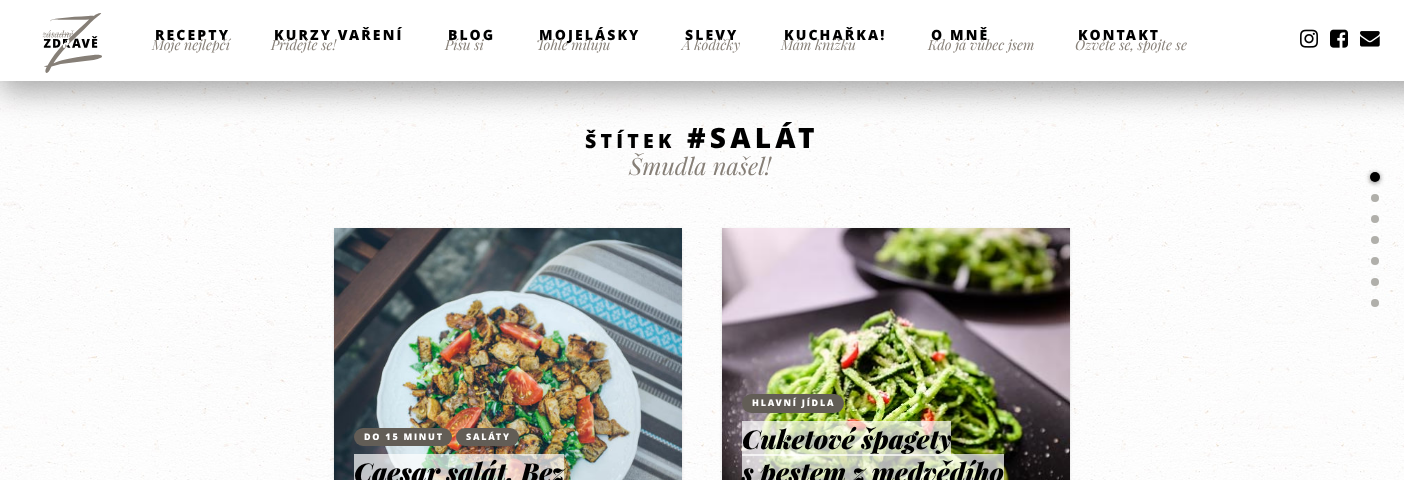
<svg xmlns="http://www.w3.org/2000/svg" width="1404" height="480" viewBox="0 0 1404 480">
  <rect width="100%" height="100%" fill="rgb(255,255,255)"/>
  <image x="0" y="81" width="1404" height="399" href="pic5.png"/>
  <rect x="0" y="8" width="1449" height="83" fill="rgba(0,0,0,0.35)" filter="blur(15px)"/>
  <rect x="0" y="0" width="1404" height="81" fill="rgb(255,255,255)"/>
  <image x="42" y="13" width="60" height="60" href="pic1.png"/>
  <text x="155" y="40" font-family="Open Sans" font-size="14" font-weight="800" letter-spacing="2.1" fill="rgb(0,0,0)">RECEPTY</text>
  <text x="152" y="50" font-family="Playfair Display" font-size="14" font-style="italic" fill="rgb(134,127,119)">Moje nejlepčí</text>
  <text x="274" y="40" font-family="Open Sans" font-size="14" font-weight="800" letter-spacing="2.1" fill="rgb(0,0,0)">KURZY VAŘENÍ</text>
  <text x="271" y="50" font-family="Playfair Display" font-size="14" font-style="italic" fill="rgb(134,127,119)">Přidejte se!</text>
  <text x="448" y="40" font-family="Open Sans" font-size="14" font-weight="800" letter-spacing="2.1" fill="rgb(0,0,0)">BLOG</text>
  <text x="445" y="50" font-family="Playfair Display" font-size="14" font-style="italic" fill="rgb(134,127,119)">Píšu si</text>
  <text x="539" y="40" font-family="Open Sans" font-size="14" font-weight="800" letter-spacing="2.1" fill="rgb(0,0,0)">MOJELÁSKY</text>
  <text x="536" y="50" font-family="Playfair Display" font-size="14" font-style="italic" fill="rgb(134,127,119)">Tohle miluju</text>
  <text x="685" y="40" font-family="Open Sans" font-size="14" font-weight="800" letter-spacing="2.1" fill="rgb(0,0,0)">SLEVY</text>
  <text x="682" y="50" font-family="Playfair Display" font-size="14" font-style="italic" fill="rgb(134,127,119)">A kódíčky</text>
  <text x="784" y="40" font-family="Open Sans" font-size="14" font-weight="800" letter-spacing="2.1" fill="rgb(0,0,0)">KUCHAŘKA!</text>
  <text x="781" y="50" font-family="Playfair Display" font-size="14" font-style="italic" fill="rgb(134,127,119)">Mám knížku</text>
  <text x="931" y="40" font-family="Open Sans" font-size="14" font-weight="800" letter-spacing="2.1" fill="rgb(0,0,0)">O MNĚ</text>
  <text x="928" y="50" font-family="Playfair Display" font-size="14" font-style="italic" fill="rgb(134,127,119)">Kdo já vůbec jsem</text>
  <text x="1078" y="40" font-family="Open Sans" font-size="14" font-weight="800" letter-spacing="2.1" fill="rgb(0,0,0)">KONTAKT</text>
  <text x="1075" y="50" font-family="Playfair Display" font-size="14" font-style="italic" fill="rgb(134,127,119)">Ozvěte se, spojte se</text>
  <image x="1300" y="29" width="18" height="19" href="pic2.png"/>
  <image x="1330" y="29" width="18" height="19" href="pic3.png"/>
  <image x="1360" y="31" width="20" height="16" href="pic4.png"/>
  <text x="585" y="148" font-family="Open Sans" font-size="19.5" font-weight="800" letter-spacing="4.25" fill="rgb(0,0,0)">ŠTÍTEK</text>
  <text x="687" y="148" font-family="Open Sans" font-size="28" font-weight="800" letter-spacing="4.25" fill="rgb(0,0,0)">#SALÁT</text>
  <text x="629" y="175" font-family="Playfair Display" font-size="23.75" font-style="italic" fill="rgb(134,127,119)">Šmudla našel!</text>
  <rect x="334" y="229" width="348" height="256" fill="rgba(0,0,0,0.1)" filter="blur(1.5px)"/>
  <image x="334" y="228" width="348" height="252" href="pic6.png"/>
  <rect x="354" y="428" width="98" height="18" rx="9" fill="rgb(98,93,86)"/>
  <text x="364" y="440" font-family="Open Sans" font-size="9" font-weight="800" letter-spacing="1.75" fill="rgb(255,255,255)">DO 15 MINUT</text>
  <rect x="456" y="428" width="63" height="18" rx="9" fill="rgb(98,93,86)"/>
  <text x="466" y="440" font-family="Open Sans" font-size="9" font-weight="800" letter-spacing="1.75" fill="rgb(255,255,255)">SALÁTY</text>
  <rect x="354" y="454" width="210" height="26" fill="rgba(255,255,255,0.7)"/>
  <text x="354" y="482" font-family="Playfair Display" font-size="26" font-weight="900" font-style="italic" fill="rgb(0,0,0)">Caesar salát. Bez</text>
  <rect x="722" y="229" width="348" height="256" fill="rgba(0,0,0,0.1)" filter="blur(1.5px)"/>
  <image x="722" y="228" width="348" height="252" href="pic7.png"/>
  <rect x="742" y="394" width="102" height="19" rx="9.5" fill="rgb(98,93,86)"/>
  <text x="752" y="406" font-family="Open Sans" font-size="9" font-weight="800" letter-spacing="1.75" fill="rgb(255,255,255)">HLAVNÍ JÍDLA</text>
  <rect x="742" y="421" width="209" height="35" fill="rgba(255,255,255,0.7)"/>
  <text x="742" y="449" font-family="Playfair Display" font-size="26" font-weight="900" font-style="italic" fill="rgb(0,0,0)">Cuketové špagety</text>
  <rect x="742" y="454" width="262" height="26" fill="rgba(255,255,255,0.7)"/>
  <text x="742" y="482" font-family="Playfair Display" font-size="26" font-weight="900" font-style="italic" fill="rgb(0,0,0)">s pestem z medvědího</text>
  <rect x="1370" y="173" width="10" height="10" rx="5" fill="rgba(0,0,0,0.55)" filter="blur(2.5px)"/>
  <circle cx="1375" cy="177" r="5" fill="rgb(0,0,0)"/>
  <circle cx="1375" cy="198" r="4" fill="rgb(176,175,170)"/>
  <circle cx="1375" cy="219" r="4" fill="rgb(176,175,170)"/>
  <circle cx="1375" cy="240" r="4" fill="rgb(176,175,170)"/>
  <circle cx="1375" cy="261" r="4" fill="rgb(176,175,170)"/>
  <circle cx="1375" cy="282" r="4" fill="rgb(176,175,170)"/>
  <circle cx="1375" cy="303" r="4" fill="rgb(176,175,170)"/>
</svg>
